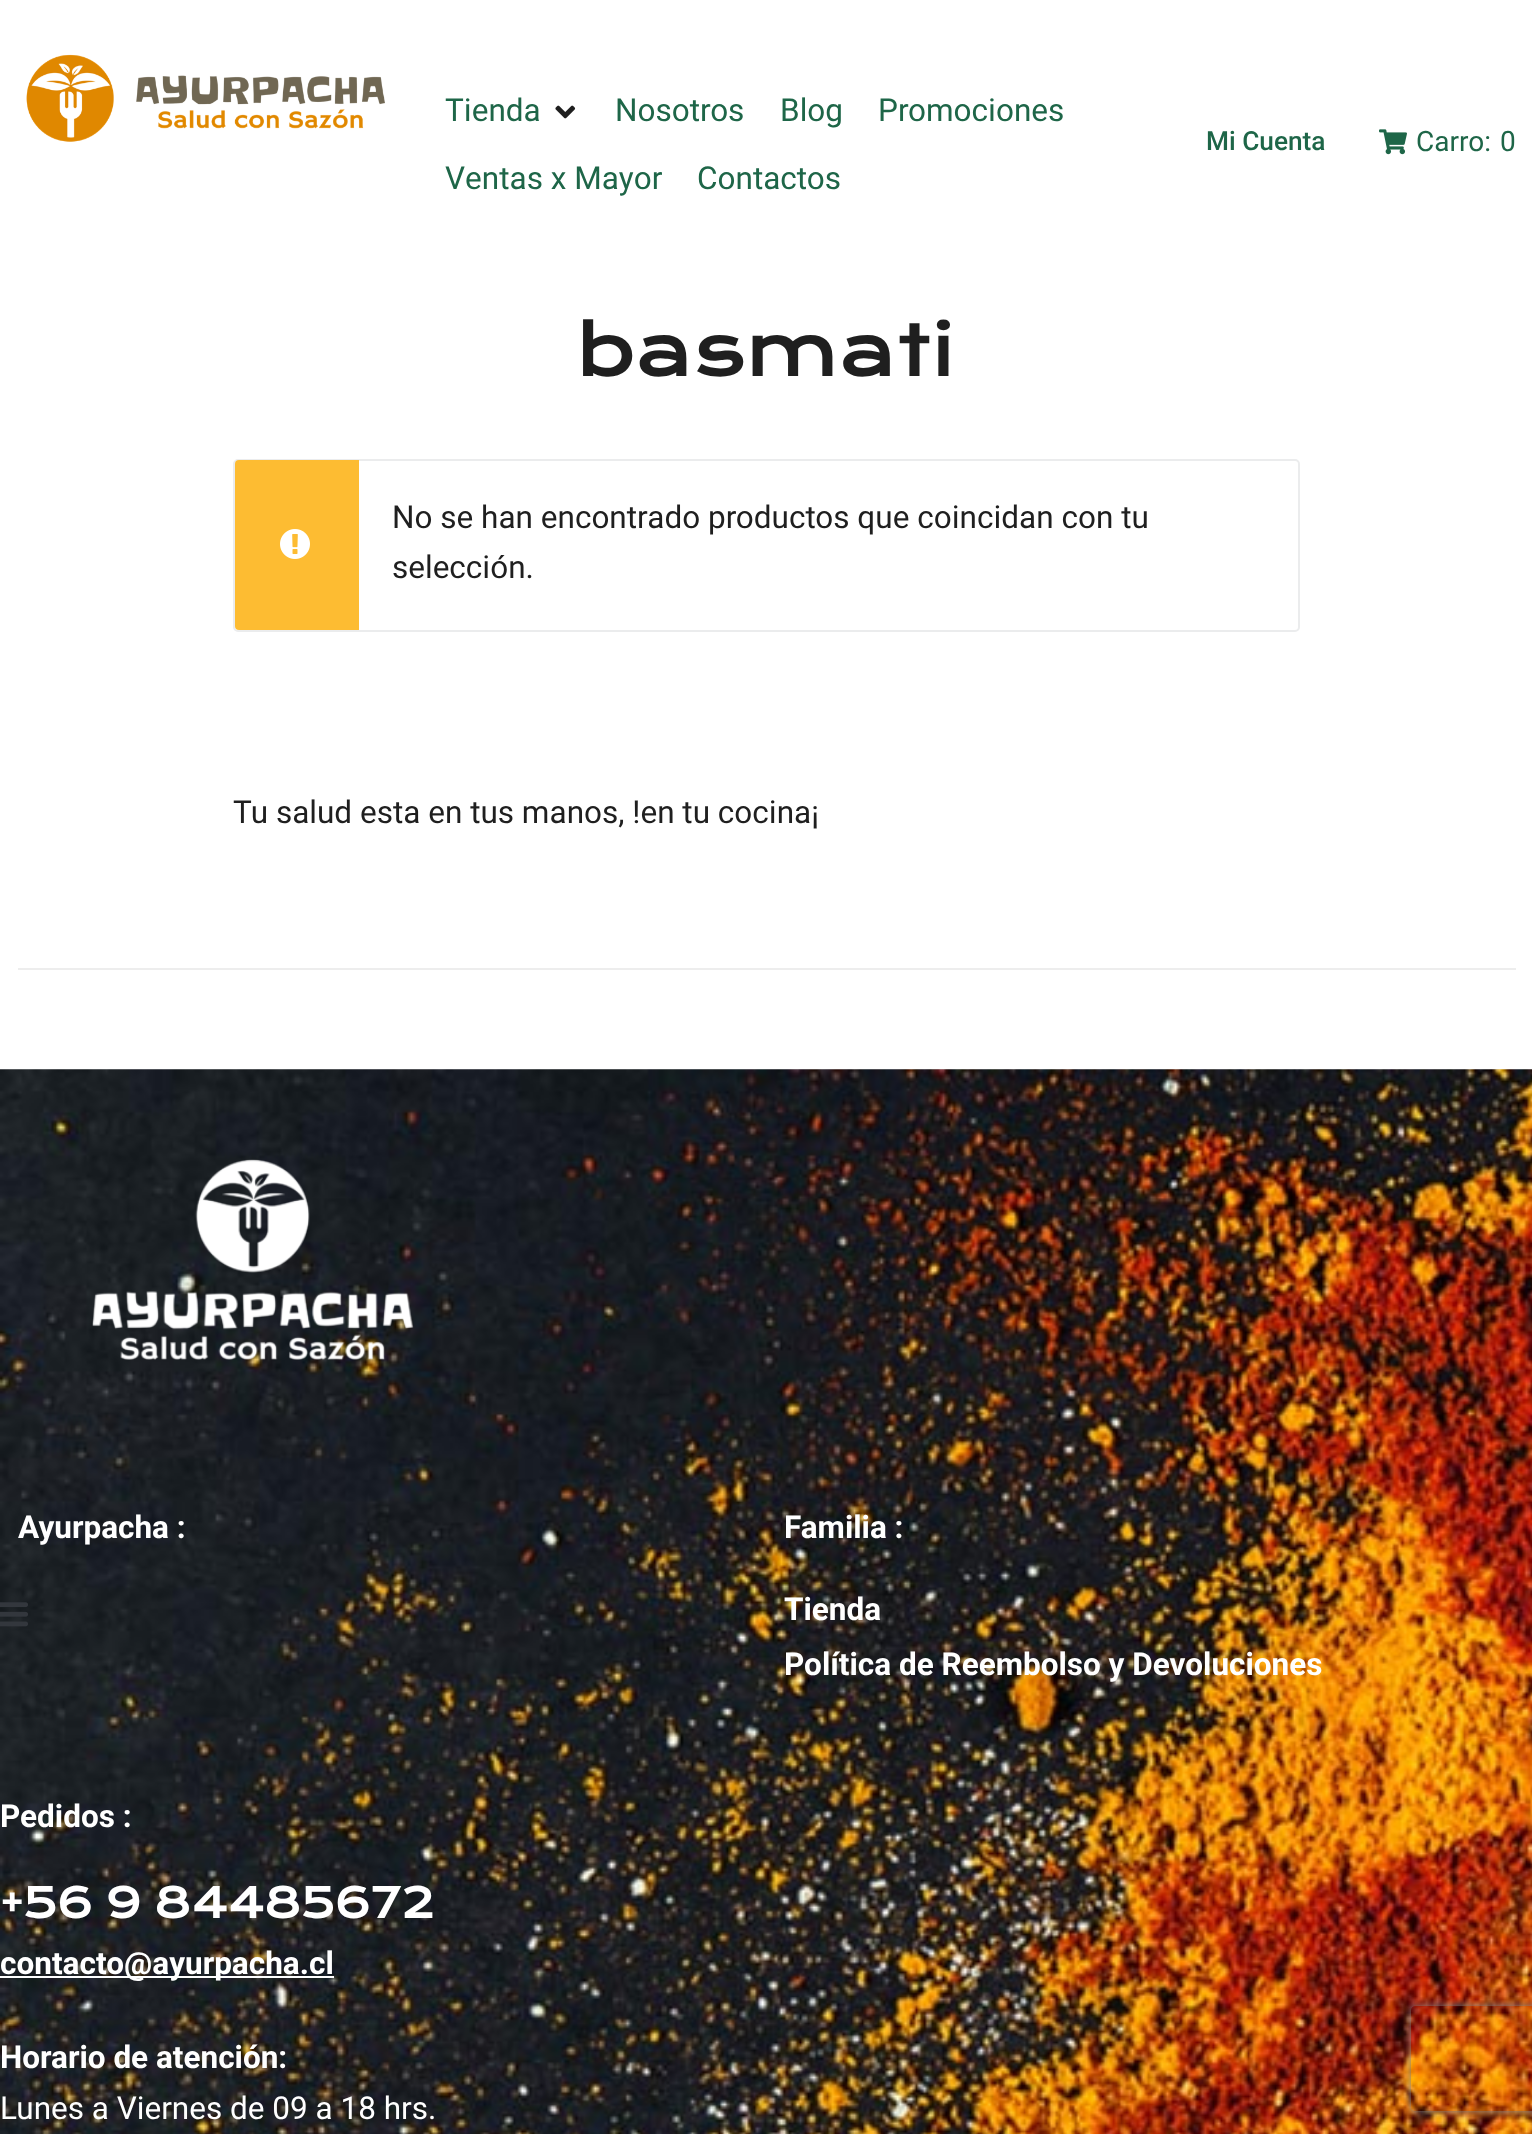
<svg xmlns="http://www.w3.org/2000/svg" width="1532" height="2134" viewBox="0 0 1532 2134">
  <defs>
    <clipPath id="clip1"><rect x="235" y="460" width="1064" height="170" rx="4"/></clipPath>
    <clipPath id="clip2"><path d="M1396 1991H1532V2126H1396ZM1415 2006H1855C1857 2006 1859 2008 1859 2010V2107C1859 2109 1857 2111 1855 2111H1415C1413 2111 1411 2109 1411 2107V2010C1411 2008 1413 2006 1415 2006Z" clip-rule="evenodd"/></clipPath>
  </defs>
  <rect width="100%" height="100%" fill="rgb(255,255,255)"/>
  <image x="26" y="54" width="359" height="88" href="pic1.png"/>
  <text x="445" y="121" font-family="Heebo" font-size="31.5" fill="rgb(30,102,72)">Tienda</text>
  <image x="555" y="105" width="21" height="14" href="pic2.png"/>
  <g font-family="Heebo" font-size="31.5" fill="rgb(30,102,72)">
    <text x="615" y="121">Nosotros</text>
    <text x="780" y="121">Blog</text>
    <text x="878" y="121">Promociones</text>
    <text x="445" y="189">Ventas x Mayor</text>
    <text x="697" y="189">Contactos</text>
  </g>
  <text x="1206" y="150" font-family="Roboto" font-size="26.25" font-weight="500" fill="rgb(30,102,72)">Mi Cuenta</text>
  <image x="1379" y="129" width="28" height="26" href="pic3.png"/>
  <g font-family="Roboto" font-size="28" fill="rgb(30,102,72)">
    <text x="1416" y="151">Carro:</text>
    <text x="1500" y="151">0</text>
  </g>
  <text x="577" y="376" font-family="Krona One" font-size="70" fill="rgb(31,31,31)">basmati</text>
  <rect x="234" y="460" width="1065" height="171" rx="4" fill="none" stroke="rgb(235,236,237)" stroke-width="2"/>
  <g clip-path="url(#clip1)">
    <path d="M238 459H359V632H238C235 632 233 630 233 627V464C233 461 235 459 238 459Z" fill="rgb(253,188,50)"/>
  </g>
  <image x="280" y="529" width="30" height="30" href="pic4.png"/>
  <g font-family="Heebo" font-size="31.5" fill="rgb(31,31,31)">
    <text>
      <tspan x="392" y="528">No se han encontrado productos que coincidan con tu</tspan>
      <tspan x="392" y="578">selección.</tspan>
    </text>
    <text x="233" y="823">Tu salud esta en tus manos, !en tu cocina¡</text>
  </g>
  <rect x="18" y="968" width="1498" height="2" fill="rgb(237,237,237)"/>
  <image x="0" y="1069" width="1532" height="1065" href="pic5.png"/>
  <image x="92" y="1159" width="322" height="201" href="pic6.png"/>
  <text x="18" y="1538" font-family="Roboto" font-size="31.5" font-weight="bold" fill="rgb(255,255,255)">Ayurpacha :</text>
  <image x="0" y="1602" width="28" height="25" href="pic7.png"/>
  <g font-family="Roboto" font-size="31.5" font-weight="bold" fill="rgb(255,255,255)">
    <text x="784" y="1538">Familia :</text>
    <text>
      <tspan x="784" y="1620">Tienda</tspan>
      <tspan x="784" y="1675">Política de Reembolso y Devoluciones</tspan>
    </text>
    <text x="0" y="1827">Pedidos :</text>
  </g>
  <text x="0" y="1918" font-family="Krona One" font-size="42" letter-spacing="-1.75" fill="rgb(255,255,255)">+56 9 84485672</text>
  <rect x="0" y="1976" width="334" height="2" fill="rgb(255,255,255)"/>
  <text x="0" y="1974" font-family="Heebo" font-size="31.5" font-weight="bold" fill="rgb(255,255,255)">contacto@ayurpacha.cl</text>
  <text x="0" y="2068" font-family="Roboto" font-size="31.5" font-weight="bold" fill="rgb(255,255,255)">Horario de atención:</text>
  <text x="0" y="2119" font-family="Roboto" font-size="31.5" fill="rgb(255,255,255)">Lunes a Viernes de 09 a 18 hrs.</text>
  <g clip-path="url(#clip2)">
    <rect x="1411" y="2006" width="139" height="105" rx="4" fill="rgb(128,128,128)" filter="blur(4.5px)"/>
  </g>
</svg>
